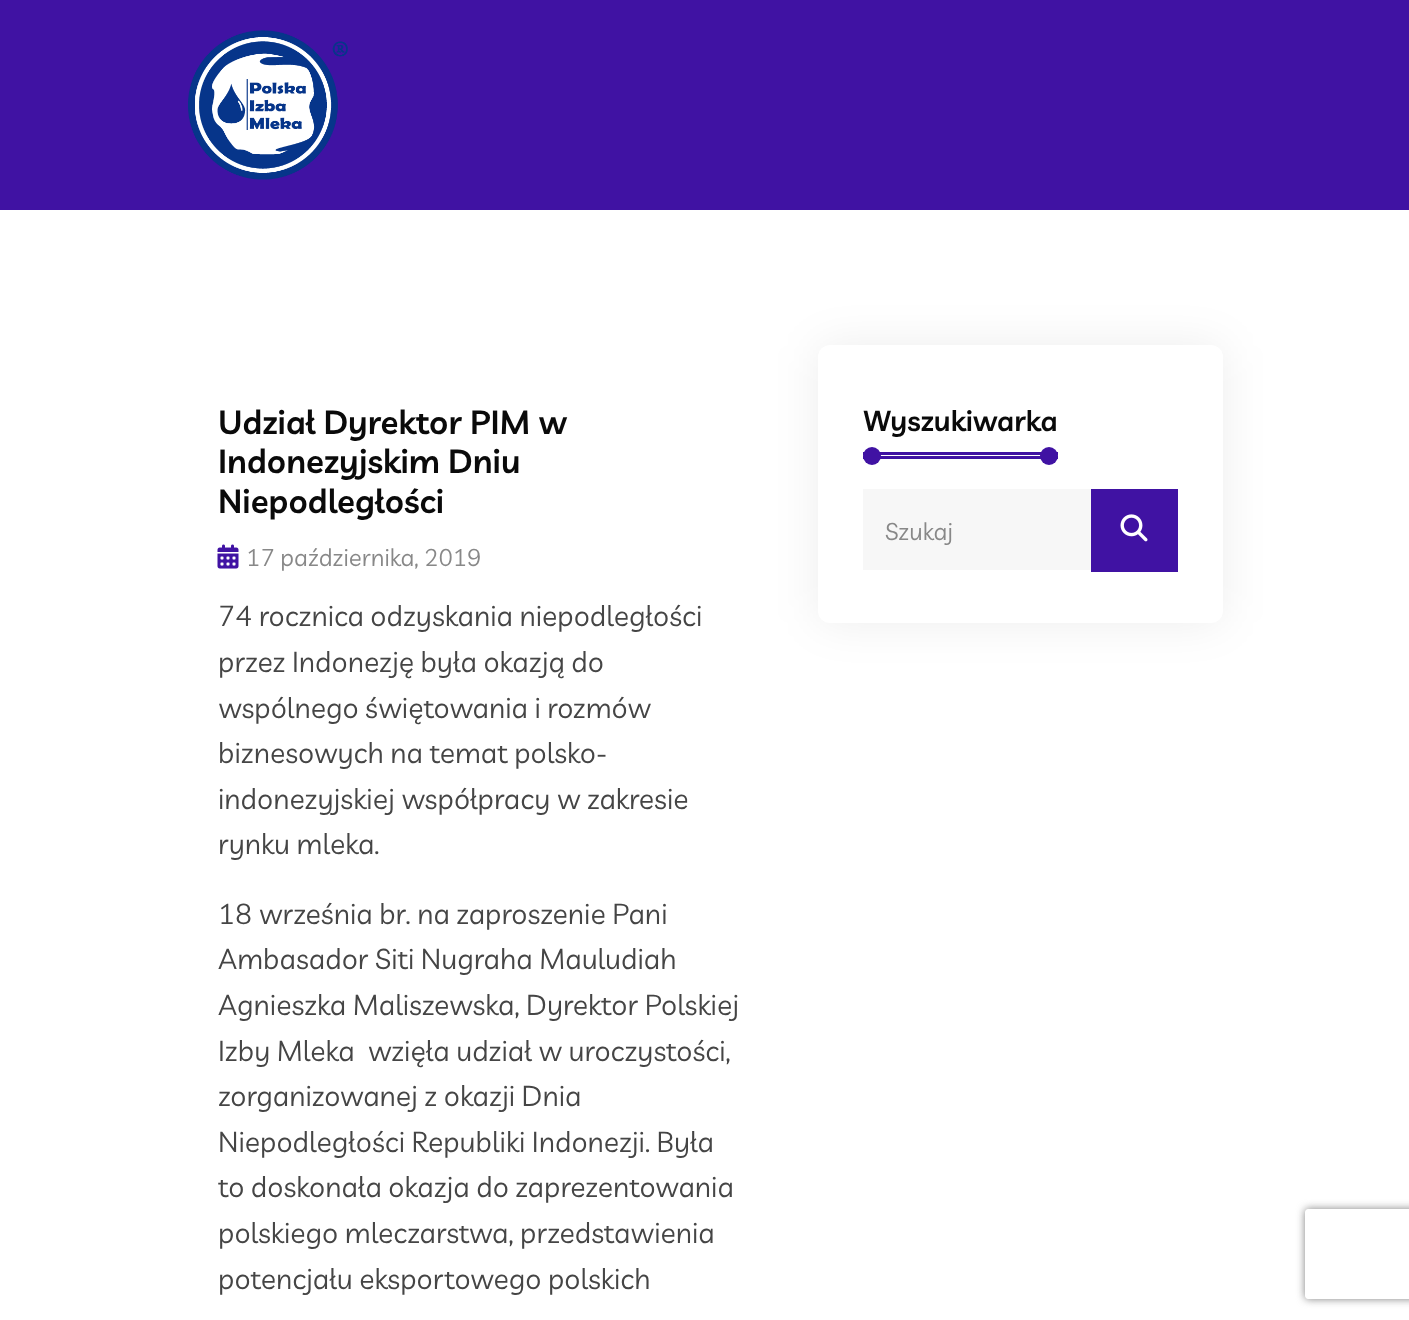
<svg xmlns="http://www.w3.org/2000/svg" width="1409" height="1320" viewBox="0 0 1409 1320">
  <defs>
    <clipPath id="clip1"><path d="M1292 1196H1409V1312H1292ZM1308 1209H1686C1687.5 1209 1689 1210.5 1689 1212V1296C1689 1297.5 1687.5 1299 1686 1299H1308C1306.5 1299 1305 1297.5 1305 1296V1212C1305 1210.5 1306.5 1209 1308 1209Z" clip-rule="evenodd"/></clipPath>
  </defs>
  <rect width="100%" height="100%" fill="rgb(255,255,255)"/>
  <rect x="0" y="0" width="1409" height="210" fill="rgb(64,18,163)"/>
  <image x="188" y="30" width="160" height="150" href="pic1.png"/>
  <g font-family="Livvic" font-size="33" font-weight="600" fill="rgb(10,10,10)">
    <text>
      <tspan x="218" y="434">Udział Dyrektor PIM w</tspan>
      <tspan x="218" y="473">Indonezyjskim Dniu</tspan>
      <tspan x="218" y="513">Niepodległości</tspan>
    </text>
  </g>
  <image x="217" y="544" width="22" height="25" href="pic2.png"/>
  <text x="246" y="566" font-family="Livvic" font-size="24" fill="rgb(136,136,136)">17 października, 2019</text>
  <g font-family="Livvic" font-size="28.5" fill="rgb(69,69,69)">
    <text>
      <tspan x="218" y="626">74 rocznica odzyskania niepodległości</tspan>
      <tspan x="218" y="672">przez Indonezję była okazją do</tspan>
      <tspan x="218" y="718">wspólnego świętowania i rozmów</tspan>
      <tspan x="218" y="763">biznesowych na temat polsko-</tspan>
      <tspan x="218" y="809">indonezyjskiej współpracy w zakresie</tspan>
      <tspan x="218" y="854">rynku mleka.</tspan>
    </text>
    <text xml:space="preserve"><tspan x="218" y="924">18 września br. na zaproszenie Pani</tspan><tspan x="218" y="969">Ambasador Siti Nugraha Mauludiah</tspan><tspan x="218" y="1015">Agnieszka Maliszewska, Dyrektor Polskiej</tspan><tspan x="218" y="1061">Izby Mleka  wzięła udział w uroczystości,</tspan><tspan x="218" y="1106">zorganizowanej z okazji Dnia</tspan><tspan x="218" y="1152">Niepodległości Republiki Indonezji. Była</tspan><tspan x="218" y="1197">to doskonała okazja do zaprezentowania</tspan><tspan x="218" y="1243">polskiego mleczarstwa, przedstawienia</tspan><tspan x="218" y="1289">potencjału eksportowego polskich</tspan></text>
  </g>
  <rect x="818" y="345" width="405" height="278" rx="12" fill="rgba(0,0,0,0.07)" filter="blur(22.5px)"/>
  <rect x="818" y="345" width="405" height="278" rx="12" fill="rgb(255,255,255)"/>
  <rect x="863" y="452" width="195" height="3" fill="rgb(64,18,163)"/>
  <rect x="863" y="456" width="195" height="3" fill="rgb(64,18,163)"/>
  <text x="863" y="431" font-family="Livvic" font-size="28.5" font-weight="600" fill="rgb(10,10,10)">Wyszukiwarka</text>
  <circle cx="872" cy="456" r="9" fill="rgb(64,18,163)"/>
  <circle cx="1049" cy="456" r="9" fill="rgb(64,18,163)"/>
  <rect x="863" y="489" width="228" height="81" fill="rgb(247,247,247)"/>
  <text x="885" y="540" font-family="Livvic" font-size="24" fill="rgb(136,136,136)">Szukaj</text>
  <rect x="1091" y="489" width="87" height="83" fill="rgb(64,18,163)"/>
  <image x="1120" y="514" width="28" height="28" href="pic3.png"/>
  <g clip-path="url(#clip1)">
    <rect x="1305" y="1209" width="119" height="90" rx="3" fill="rgb(128,128,128)" filter="blur(4px)"/>
  </g>
</svg>
